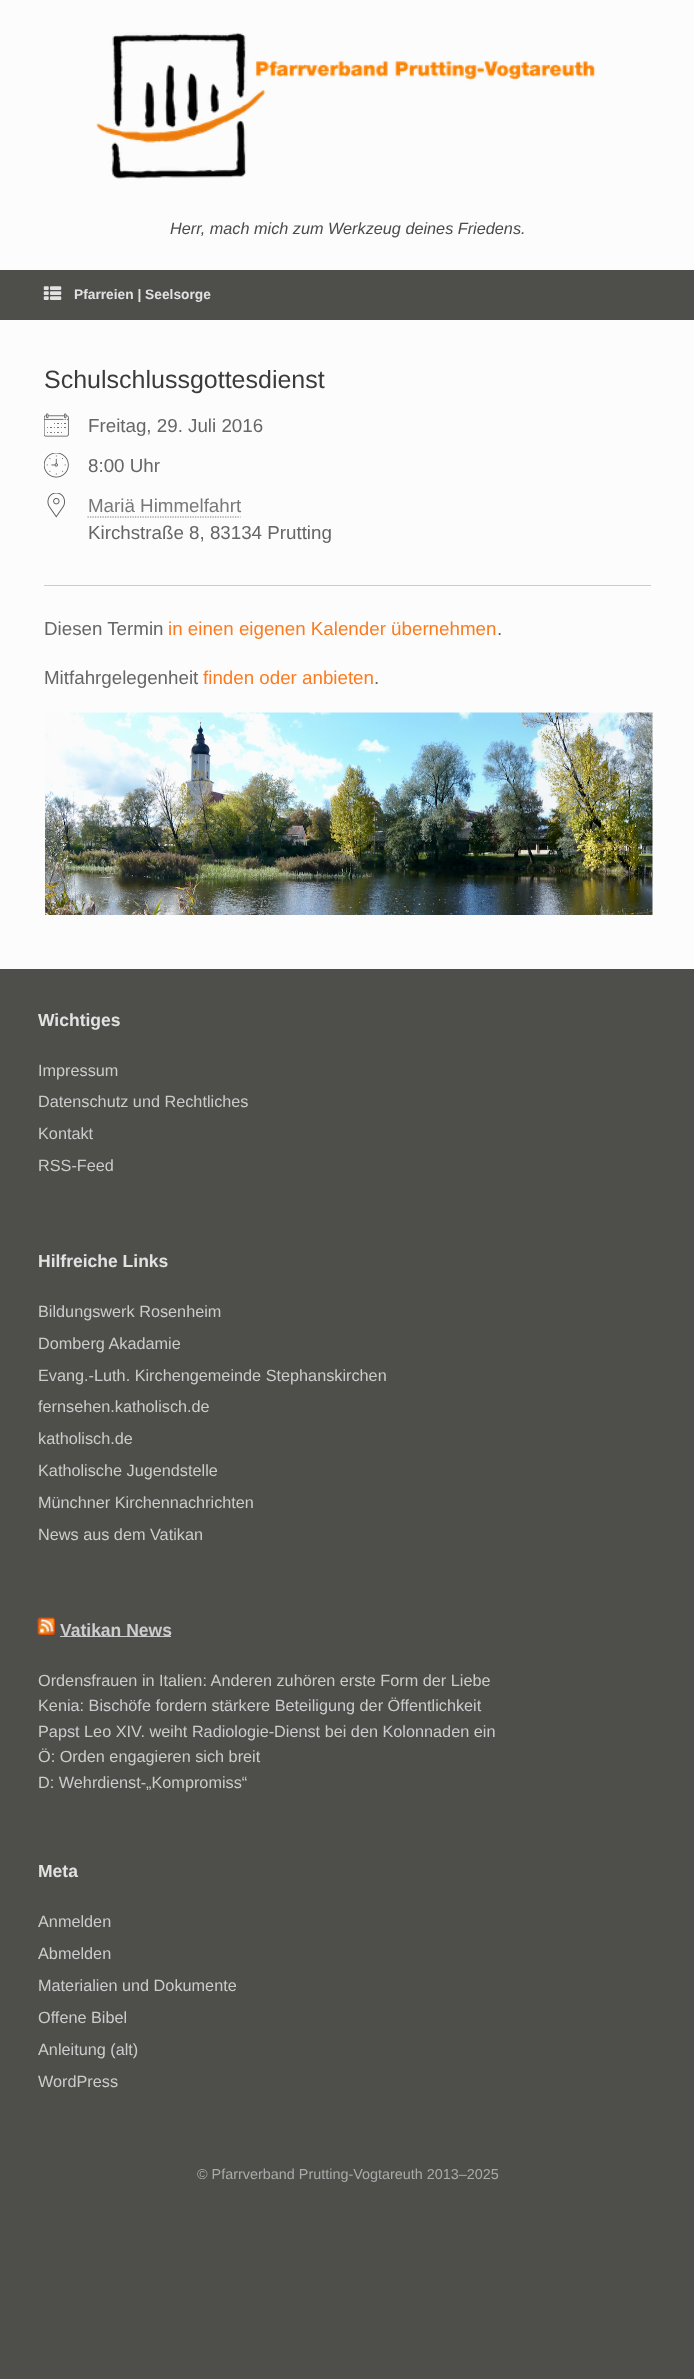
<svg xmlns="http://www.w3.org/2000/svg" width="694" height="2379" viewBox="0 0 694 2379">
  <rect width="100%" height="100%" fill="rgb(78,79,75)"/>
  <rect x="0" y="0" width="694" height="270" fill="rgb(252,252,252)"/>
  <image x="96" y="32" width="500" height="147" href="pic1.png"/>
  <text x="170" y="234" font-family="Liberation Sans" font-size="16.25" font-style="italic" fill="rgb(75,75,75)">Herr, mach mich zum Werkzeug deines Friedens.</text>
  <image x="43" y="286" width="19" height="14" href="pic2.png"/>
  <text x="74" y="299" font-family="Liberation Sans" font-size="13.75" font-weight="bold" fill="rgb(226,226,226)">Pfarreien | Seelsorge</text>
  <rect x="0" y="320" width="694" height="649" fill="rgb(252,252,252)"/>
  <text x="44" y="388" font-family="Liberation Sans" font-size="25" fill="rgb(59,59,59)">Schulschlussgottesdienst</text>
  <image x="44" y="413" width="25" height="24" href="pic3.png"/>
  <text x="88" y="432" font-family="Liberation Sans" font-size="18.75" fill="rgb(102,102,102)">Freitag, 29. Juli 2016</text>
  <image x="44" y="453" width="25" height="25" href="pic4.png"/>
  <text x="88" y="472" font-family="Liberation Sans" font-size="18.75" fill="rgb(102,102,102)">8:00 Uhr</text>
  <image x="47" y="493" width="18" height="25" href="pic5.png"/>
  <text x="88" y="512" font-family="Liberation Sans" font-size="18.75" fill="rgb(120,120,120)">Mariä Himmelfahrt</text>
  <path d="M87.5 517H240.5" fill="none" stroke="rgb(120,120,120)" stroke-width="1.2" stroke-dasharray="1.25 1.25"/>
  <text x="88" y="539" font-family="Liberation Sans" font-size="18.75" fill="rgb(102,102,102)">Kirchstraße 8, 83134 Prutting</text>
  <rect x="44" y="585" width="607" height="1" fill="rgb(204,204,204)"/>
  <text x="44" y="635" font-family="Liberation Sans" font-size="18.75" fill="rgb(102,102,102)">Diesen Termin</text>
  <text x="168" y="635" font-family="Liberation Sans" font-size="18.75" fill="rgb(251,124,32)">in einen eigenen Kalender übernehmen</text>
  <g font-family="Liberation Sans" font-size="18.75" fill="rgb(102,102,102)">
    <text x="497" y="635">.</text>
    <text x="44" y="684">Mitfahrgelegenheit</text>
  </g>
  <text x="203" y="684" font-family="Liberation Sans" font-size="18.75" fill="rgb(251,124,32)">finden oder anbieten</text>
  <text x="374" y="684" font-family="Liberation Sans" font-size="18.75" fill="rgb(102,102,102)">.</text>
  <image x="45" y="712" width="608" height="203" href="pic6.png"/>
  <text x="38" y="1026" font-family="Liberation Sans" font-size="17.5" font-weight="bold" fill="rgb(226,226,226)">Wichtiges</text>
  <g font-family="Liberation Sans" font-size="16.25" fill="rgb(204,204,204)">
    <text>
      <tspan x="38" y="1076">Impressum</tspan>
      <tspan x="38" y="1107">Datenschutz und Rechtliches</tspan>
      <tspan x="38" y="1139">Kontakt</tspan>
      <tspan x="38" y="1171">RSS-Feed</tspan>
    </text>
  </g>
  <text x="38" y="1267" font-family="Liberation Sans" font-size="17.5" font-weight="bold" fill="rgb(226,226,226)">Hilfreiche Links</text>
  <g font-family="Liberation Sans" font-size="16.25" fill="rgb(204,204,204)">
    <text>
      <tspan x="38" y="1317">Bildungswerk Rosenheim</tspan>
      <tspan x="38" y="1349">Domberg Akadamie</tspan>
      <tspan x="38" y="1381">Evang.-Luth. Kirchengemeinde Stephanskirchen</tspan>
      <tspan x="38" y="1412">fernsehen.katholisch.de</tspan>
      <tspan x="38" y="1444">katholisch.de</tspan>
      <tspan x="38" y="1476">Katholische Jugendstelle</tspan>
      <tspan x="38" y="1508">Münchner Kirchennachrichten</tspan>
      <tspan x="38" y="1540">News aus dem Vatikan</tspan>
    </text>
  </g>
  <image x="37" y="1617" width="18" height="18" href="pic7.png"/>
  <rect x="60" y="1636" width="111" height="1" fill="rgb(204,204,204)"/>
  <text x="60" y="1636" font-family="Liberation Sans" font-size="17.5" font-weight="bold" fill="rgb(204,204,204)">Vatikan News</text>
  <g font-family="Liberation Sans" font-size="16.25" fill="rgb(204,204,204)">
    <text>
      <tspan x="38" y="1686">Ordensfrauen in Italien: Anderen zuhören erste Form der Liebe</tspan>
      <tspan x="38" y="1711">Kenia: Bischöfe fordern stärkere Beteiligung der Öffentlichkeit</tspan>
      <tspan x="38" y="1737">Papst Leo XIV. weiht Radiologie-Dienst bei den Kolonnaden ein</tspan>
      <tspan x="38" y="1762">Ö: Orden engagieren sich breit</tspan>
      <tspan x="38" y="1788">D: Wehrdienst-„Kompromiss“</tspan>
    </text>
  </g>
  <text x="38" y="1877" font-family="Liberation Sans" font-size="17.5" font-weight="bold" fill="rgb(226,226,226)">Meta</text>
  <g font-family="Liberation Sans" font-size="16.25" fill="rgb(204,204,204)">
    <text>
      <tspan x="38" y="1927">Anmelden</tspan>
      <tspan x="38" y="1959">Abmelden</tspan>
      <tspan x="38" y="1991">Materialien und Dokumente</tspan>
      <tspan x="38" y="2023">Offene Bibel</tspan>
      <tspan x="38" y="2055">Anleitung (alt)</tspan>
      <tspan x="38" y="2087">WordPress</tspan>
    </text>
  </g>
  <text x="197" y="2179" font-family="Liberation Sans" font-size="14.4" fill="rgb(170,170,170)">© Pfarrverband Prutting-Vogtareuth 2013–2025</text>
</svg>
